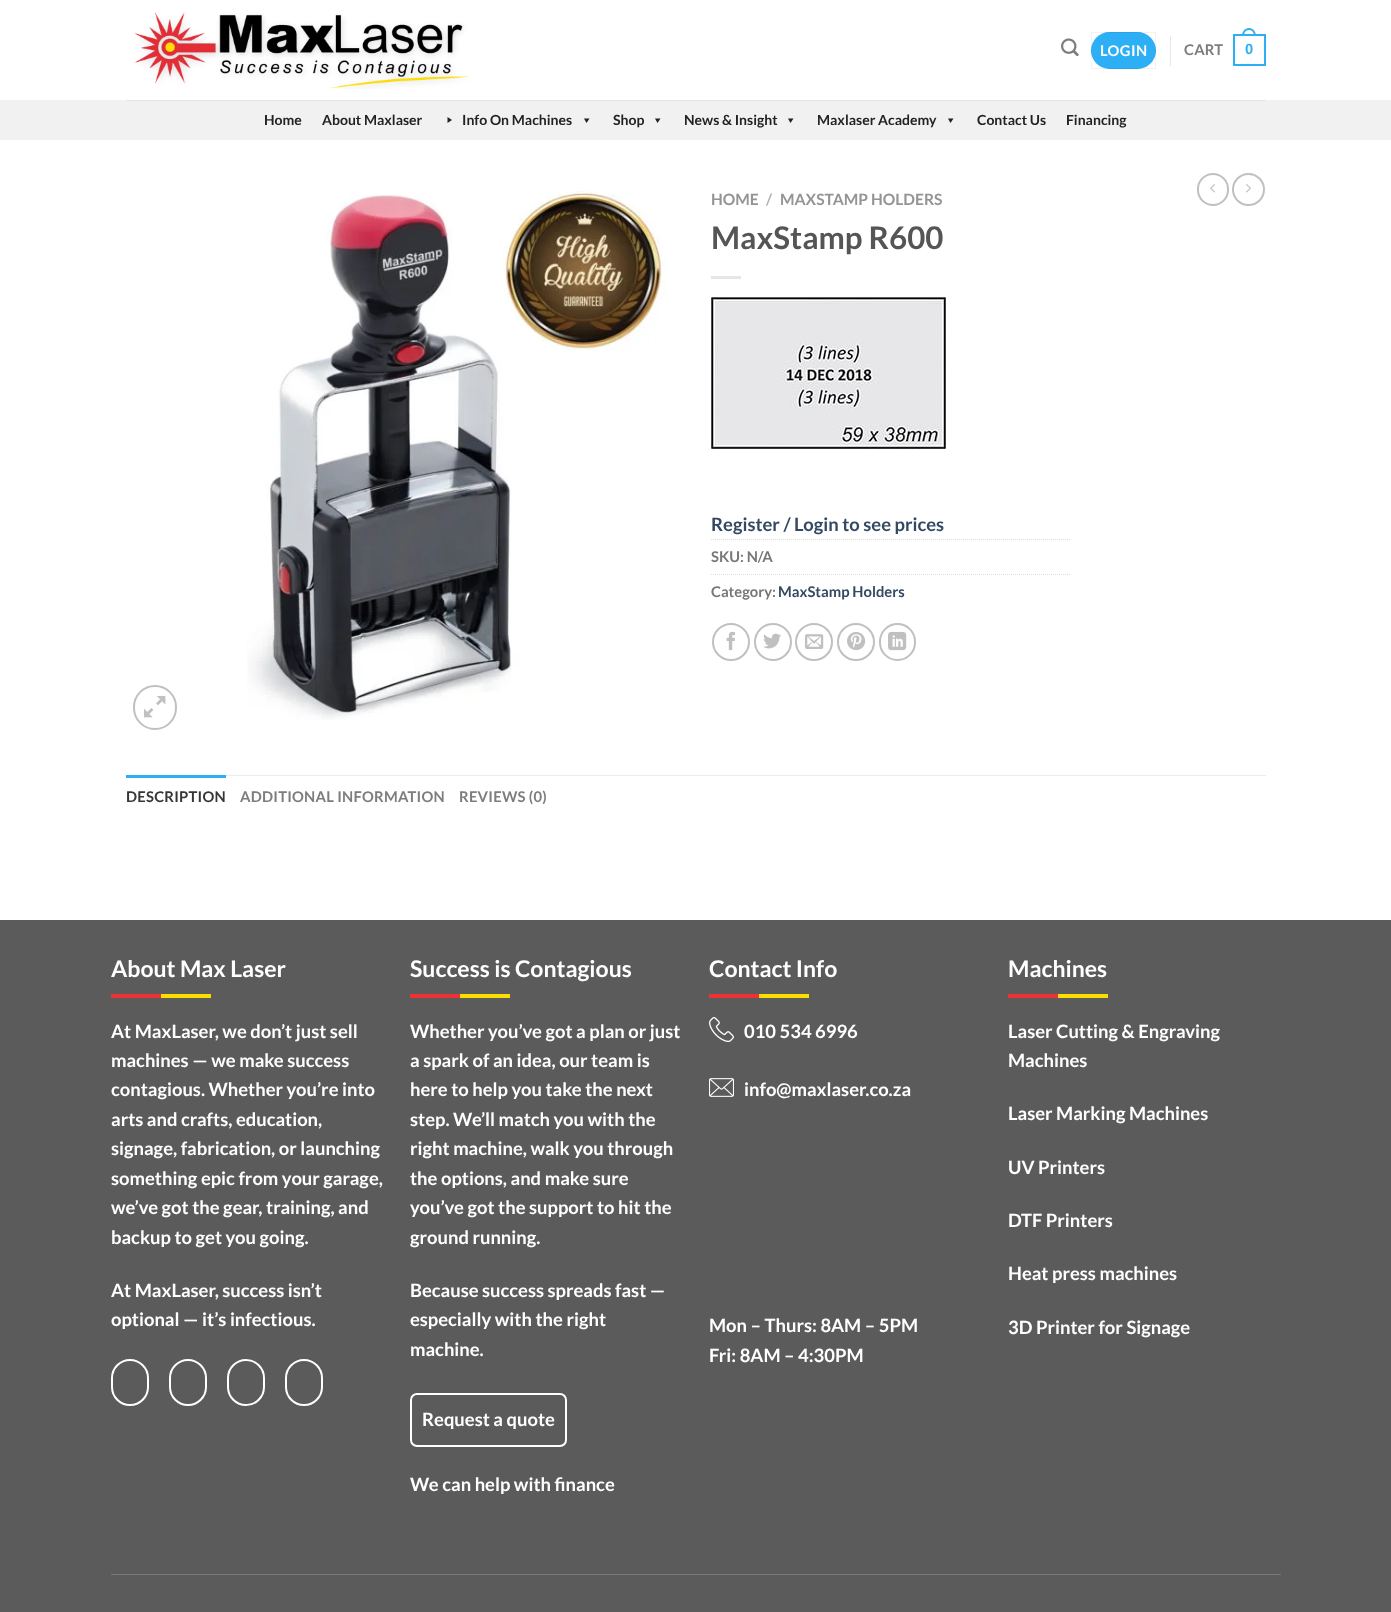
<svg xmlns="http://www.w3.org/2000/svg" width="1391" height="1612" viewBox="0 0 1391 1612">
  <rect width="100%" height="100%" fill="rgb(255,255,255)"/>
  <image x="134" y="12" width="336" height="77" href="pic1.png"/>
  <image x="1061" y="38" width="18" height="19" href="pic2.png"/>
  <rect x="1091" y="32" width="65" height="37" rx="18.5" fill="rgb(45,175,245)"/>
  <rect x="1091.5" y="32.5" width="64" height="36" fill="none" stroke="rgba(0,0,0,0.05)"/>
  <text x="1100" y="56" font-family="Lato" font-size="14.75" font-weight="bold" letter-spacing="0.5" fill="rgb(255,255,255)">LOGIN</text>
  <rect x="1170" y="36" width="1" height="30" fill="rgb(230,230,230)"/>
  <text x="1184" y="55" font-family="Lato" font-size="14.75" font-weight="bold" letter-spacing="0.25" fill="rgb(125,125,125)">CART</text>
  <rect x="1234" y="35" width="31" height="30" fill="none" stroke="rgb(45,175,245)" stroke-width="2"/>
  <path d="M1249 28C1253.5 28 1256 32 1256 36H1242C1242 32 1244.5 28 1249 28ZM1249 30C1252.5 30 1254 33 1254 36H1244C1244 33 1245.5 30 1249 30Z" fill="rgb(45,175,245)" fill-rule="evenodd"/>
  <text x="1245" y="54" font-family="Liberation Sans" font-size="14.75" font-weight="bold" letter-spacing="0.25" fill="rgb(45,175,245)">0</text>
  <rect x="0" y="100" width="1391" height="40" fill="rgb(241,241,241)"/>
  <rect x="126" y="100" width="1140" height="1" fill="rgb(229,229,229)"/>
  <g font-family="Lato" font-size="14" font-weight="bold" fill="rgb(34,34,34)">
    <text x="264" y="125">Home</text>
    <text x="322" y="125">About Maxlaser</text>
  </g>
  <path d="M447.5 117L452 120L447.5 123Z" fill="rgb(34,34,34)"/>
  <text x="462" y="125" font-family="Lato" font-size="14" font-weight="bold" fill="rgb(34,34,34)">Info On Machines</text>
  <path d="M589.5 118.5L586.5 123L584 118.5Z" fill="rgb(34,34,34)"/>
  <text x="613" y="125" font-family="Lato" font-size="14" font-weight="bold" fill="rgb(34,34,34)">Shop</text>
  <path d="M660.5 118.5L657.5 123L655 118.5Z" fill="rgb(34,34,34)"/>
  <text x="684" y="125" font-family="Lato" font-size="14" font-weight="bold" fill="rgb(34,34,34)">News &amp; Insight</text>
  <path d="M793.5 118.5L790.5 123L788 118.5Z" fill="rgb(34,34,34)"/>
  <text x="817" y="125" font-family="Lato" font-size="14" font-weight="bold" fill="rgb(34,34,34)">Maxlaser Academy</text>
  <path d="M953.5 118.5L950.5 123L948 118.5Z" fill="rgb(34,34,34)"/>
  <g font-family="Lato" font-size="14" font-weight="bold" fill="rgb(34,34,34)">
    <text x="977" y="125">Contact Us</text>
    <text x="1066" y="125">Financing</text>
  </g>
  <rect x="134" y="686" width="42" height="43" rx="21" fill="none" stroke="rgb(192,192,192)" stroke-width="2"/>
  <image x="144" y="695" width="22" height="23" href="pic3.png"/>
  <image x="247" y="191" width="419" height="529" href="pic4.png"/>
  <text x="711" y="205" font-family="Lato" font-size="15.6" font-weight="bold" fill="rgb(148,148,148)">HOME</text>
  <text x="766" y="205" font-family="Lato" font-size="15.6" font-weight="bold" fill="rgb(178,178,178)">/</text>
  <text x="780" y="205" font-family="Lato" font-size="15.6" font-weight="bold" fill="rgb(148,148,148)">MAXSTAMP HOLDERS</text>
  <text x="711" y="249" font-family="Lato" font-size="31.25" font-weight="bold" fill="rgb(85,85,85)">MaxStamp R600</text>
  <rect x="711" y="276" width="30" height="3" fill="rgb(230,230,230)"/>
  <image x="711" y="297" width="235" height="152" href="pic5.png"/>
  <text x="711" y="531" font-family="Lato" font-size="18.4" font-weight="bold" fill="rgb(51,72,98)">Register / Login to see prices</text>
  <path d="M711 539.5H1071" fill="none" stroke="rgb(221,221,221)" stroke-dasharray="1 1"/>
  <text x="711" y="562" font-family="Lato" font-size="14.75" font-weight="bold" fill="rgb(119,119,119)">SKU: N/A</text>
  <path d="M711 574.5H1071" fill="none" stroke="rgb(221,221,221)" stroke-dasharray="1 1"/>
  <text x="711" y="597" font-family="Lato" font-size="14.75" font-weight="bold" fill="rgb(119,119,119)">Category:</text>
  <text x="778" y="597" font-family="Lato" font-size="14.75" font-weight="bold" fill="rgb(51,72,98)">MaxStamp Holders</text>
  <circle cx="731" cy="642" r="18" fill="none" stroke="rgb(192,192,192)" stroke-width="2"/>
  <image x="726" y="631" width="9" height="20" href="pic6.png"/>
  <circle cx="773" cy="642" r="18" fill="none" stroke="rgb(192,192,192)" stroke-width="2"/>
  <image x="763" y="633" width="18" height="16" href="pic7.png"/>
  <circle cx="814" cy="642" r="18" fill="none" stroke="rgb(192,192,192)" stroke-width="2"/>
  <image x="805" y="634" width="19" height="15" href="pic8.png"/>
  <circle cx="856" cy="642" r="18" fill="none" stroke="rgb(192,192,192)" stroke-width="2"/>
  <image x="847" y="632" width="19" height="19" href="pic9.png"/>
  <rect x="880" y="624" width="35" height="36" rx="17.5" fill="none" stroke="rgb(192,192,192)" stroke-width="2"/>
  <image x="888" y="631" width="19" height="20" href="pic10.png"/>
  <rect x="1198" y="174" width="30" height="31" rx="15" fill="none" stroke="rgb(192,192,192)" stroke-width="2"/>
  <image x="1210" y="184" width="5" height="9" href="pic11.png"/>
  <circle cx="1248.5" cy="189.5" r="15.5" fill="none" stroke="rgb(192,192,192)" stroke-width="2"/>
  <image x="1246" y="184" width="5" height="9" href="pic12.png"/>
  <rect x="226" y="775" width="1040" height="1" fill="rgb(236,236,236)"/>
  <rect x="126" y="775" width="100" height="3" fill="rgb(45,175,245)"/>
  <text x="126" y="802" font-family="Lato" font-size="14.75" font-weight="bold" letter-spacing="0.25" fill="rgb(54,54,54)">DESCRIPTION</text>
  <g font-family="Lato" font-size="14.75" font-weight="bold" letter-spacing="0.25" fill="rgb(125,125,125)">
    <text x="240" y="802">ADDITIONAL INFORMATION</text>
    <text x="459" y="802">REVIEWS (0)</text>
  </g>
  <rect x="0" y="920" width="1391" height="692" fill="rgb(91,91,91)"/>
  <text x="111" y="977" font-family="Lato" font-size="23" font-weight="bold" fill="rgb(255,255,255)">About Max Laser</text>
  <rect x="111" y="994" width="50" height="4" fill="rgb(238,49,53)"/>
  <rect x="161" y="994" width="50" height="4" fill="rgb(251,221,0)"/>
  <g font-family="Lato" font-size="18.4" font-weight="bold" fill="rgb(255,255,255)">
    <text>
      <tspan x="111" y="1038">At MaxLaser, we don’t just sell</tspan>
      <tspan x="111" y="1067">machines — we make success</tspan>
      <tspan x="111" y="1096">contagious. Whether you’re into</tspan>
      <tspan x="111" y="1126">arts and crafts, education,</tspan>
      <tspan x="111" y="1155">signage, fabrication, or launching</tspan>
      <tspan x="111" y="1185">something epic from your garage,</tspan>
      <tspan x="111" y="1214">we’ve got the gear, training, and</tspan>
      <tspan x="111" y="1244">backup to get you going.</tspan>
    </text>
    <text>
      <tspan x="111" y="1297">At MaxLaser, success isn’t</tspan>
      <tspan x="111" y="1326">optional — it’s infectious.</tspan>
    </text>
  </g>
  <rect x="112" y="1360" width="36" height="45" rx="18" fill="none" stroke="rgb(255,255,255)" stroke-width="2"/>
  <rect x="170" y="1360" width="36" height="45" rx="18" fill="none" stroke="rgb(255,255,255)" stroke-width="2"/>
  <rect x="228" y="1360" width="36" height="45" rx="18" fill="none" stroke="rgb(255,255,255)" stroke-width="2"/>
  <rect x="286" y="1360" width="36" height="45" rx="18" fill="none" stroke="rgb(255,255,255)" stroke-width="2"/>
  <text x="410" y="977" font-family="Lato" font-size="23" font-weight="bold" fill="rgb(255,255,255)">Success is Contagious</text>
  <rect x="410" y="994" width="50" height="4" fill="rgb(238,49,53)"/>
  <rect x="460" y="994" width="50" height="4" fill="rgb(251,221,0)"/>
  <g font-family="Lato" font-size="18.4" font-weight="bold" fill="rgb(255,255,255)">
    <text>
      <tspan x="410" y="1038">Whether you’ve got a plan or just</tspan>
      <tspan x="410" y="1067">a spark of an idea, our team is</tspan>
      <tspan x="410" y="1096">here to help you take the next</tspan>
      <tspan x="410" y="1126">step. We’ll match you with the</tspan>
      <tspan x="410" y="1155">right machine, walk you through</tspan>
      <tspan x="410" y="1185">the options, and make sure</tspan>
      <tspan x="410" y="1214">you’ve got the support to hit the</tspan>
      <tspan x="410" y="1244">ground running.</tspan>
    </text>
    <text>
      <tspan x="410" y="1297">Because success spreads fast —</tspan>
      <tspan x="410" y="1326">especially with the right</tspan>
      <tspan x="410" y="1356">machine.</tspan>
    </text>
  </g>
  <rect x="411" y="1394" width="155" height="52" rx="6" fill="none" stroke="rgb(255,255,255)" stroke-width="2"/>
  <g font-family="Lato" font-size="18.4" font-weight="bold" fill="rgb(255,255,255)">
    <text x="422" y="1426">Request a quote</text>
    <text x="410" y="1491">We can help with finance</text>
  </g>
  <text x="709" y="977" font-family="Lato" font-size="23" font-weight="bold" fill="rgb(255,255,255)">Contact Info</text>
  <rect x="709" y="994" width="50" height="4" fill="rgb(238,49,53)"/>
  <rect x="759" y="994" width="50" height="4" fill="rgb(251,221,0)"/>
  <image x="709" y="1017" width="25" height="25" href="pic13.png"/>
  <text x="744" y="1038" font-family="Lato" font-size="18.4" font-weight="bold" fill="rgb(255,255,255)">010 534 6996</text>
  <image x="709" y="1078" width="25" height="19" href="pic14.png"/>
  <g font-family="Lato" font-size="18.4" font-weight="bold" fill="rgb(255,255,255)">
    <text x="744" y="1096">info@maxlaser.co.za</text>
    <text>
      <tspan x="709" y="1332">Mon – Thurs: 8AM – 5PM</tspan>
      <tspan x="709" y="1362">Fri: 8AM – 4:30PM</tspan>
    </text>
  </g>
  <text x="1008" y="977" font-family="Lato" font-size="23" font-weight="bold" fill="rgb(255,255,255)">Machines</text>
  <rect x="1008" y="994" width="50" height="4" fill="rgb(238,49,53)"/>
  <rect x="1058" y="994" width="50" height="4" fill="rgb(251,221,0)"/>
  <g font-family="Lato" font-size="18.4" font-weight="bold" fill="rgb(255,255,255)">
    <text>
      <tspan x="1008" y="1038">Laser Cutting &amp; Engraving</tspan>
      <tspan x="1008" y="1067">Machines</tspan>
    </text>
    <text x="1008" y="1120">Laser Marking Machines</text>
    <text x="1008" y="1174">UV Printers</text>
    <text x="1008" y="1227">DTF Printers</text>
    <text x="1008" y="1280">Heat press machines</text>
    <text x="1008" y="1334">3D Printer for Signage</text>
  </g>
  <rect x="111" y="1574" width="1170" height="1" fill="rgb(119,119,119)"/>
</svg>
